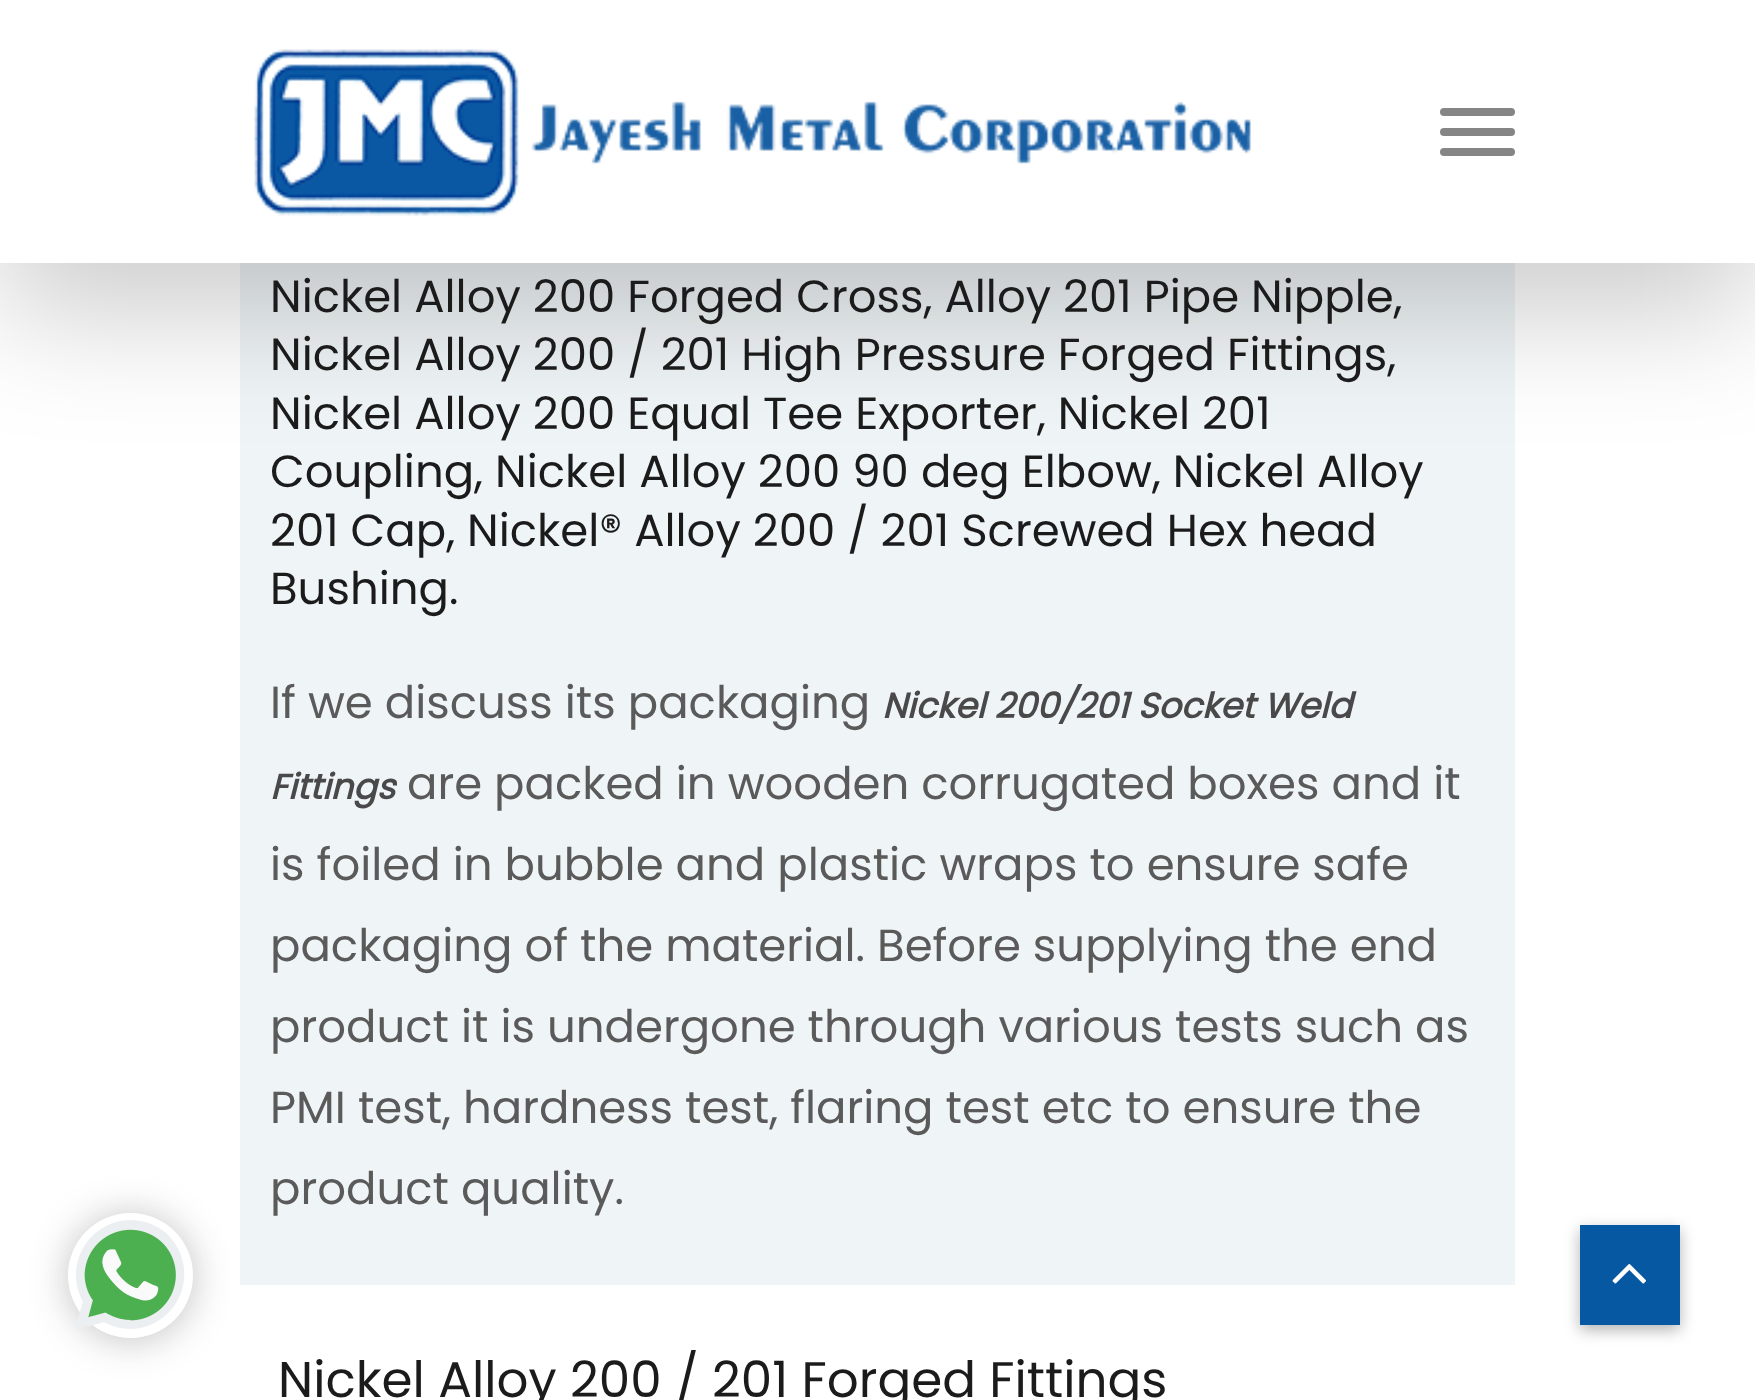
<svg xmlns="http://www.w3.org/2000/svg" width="1755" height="1400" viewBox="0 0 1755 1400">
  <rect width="100%" height="100%" fill="rgb(255,255,255)"/>
  <rect x="240" y="263" width="1275" height="1022" fill="rgb(239,244,246)"/>
  <rect x="0" y="50" width="1755" height="263" fill="rgba(0,0,0,0.2)" filter="blur(62.5px)"/>
  <rect x="0" y="0" width="1755" height="263" fill="rgb(255,255,255)"/>
  <image x="253" y="49" width="998" height="168" href="pic1.png"/>
  <rect x="1440" y="108" width="75" height="8" rx="4" fill="rgb(133,133,133)"/>
  <rect x="1440" y="128" width="75" height="8" rx="4" fill="rgb(133,133,133)"/>
  <rect x="1440" y="148" width="75" height="8" rx="4" fill="rgb(133,133,133)"/>
  <rect x="68" y="1215" width="125" height="125" rx="62.5" fill="rgba(32,33,36,0.28)" filter="blur(19px)"/>
  <circle cx="130.5" cy="1275.5" r="62.5" fill="rgb(255,255,255)"/>
  <image x="75" y="1220" width="110" height="110" href="pic2.png"/>
  <g font-family="Poppins" font-size="45" fill="rgb(27,27,27)">
    <text>
      <tspan x="270" y="312">Nickel Alloy 200 Forged Cross, Alloy 201 Pipe Nipple,</tspan>
      <tspan x="270" y="370">Nickel Alloy 200 / 201 High Pressure Forged Fittings,</tspan>
      <tspan x="270" y="429">Nickel Alloy 200 Equal Tee Exporter, Nickel 201</tspan>
      <tspan x="270" y="487">Coupling, Nickel Alloy 200 90 deg Elbow, Nickel Alloy</tspan>
      <tspan x="270" y="546">201 Cap, Nickel® Alloy 200 / 201 Screwed Hex head</tspan>
      <tspan x="270" y="604">Bushing.</tspan>
    </text>
  </g>
  <text x="270" y="718" font-family="Poppins" font-size="45" fill="rgb(90,90,90)">If we discuss its packaging</text>
  <g font-family="Poppins" font-size="35" font-weight="bold" font-style="italic" fill="rgb(73,73,73)">
    <text x="882" y="718">Nickel 200/201 Socket Weld</text>
    <text x="270" y="799">Fittings</text>
  </g>
  <g font-family="Poppins" font-size="45" fill="rgb(90,90,90)">
    <text x="407" y="799">are packed in wooden corrugated boxes and it</text>
    <text>
      <tspan x="270" y="880">is foiled in bubble and plastic wraps to ensure safe</tspan>
      <tspan x="270" y="961">packaging of the material. Before supplying the end</tspan>
      <tspan x="270" y="1042">product it is undergone through various tests such as</tspan>
      <tspan x="270" y="1123">PMI test, hardness test, flaring test etc to ensure the</tspan>
      <tspan x="270" y="1204">product quality.</tspan>
    </text>
  </g>
  <text x="278" y="1397" font-family="Poppins" font-size="50" fill="rgb(27,27,27)">Nickel Alloy 200 / 201 Forged Fittings</text>
  <rect x="1580" y="1230" width="100" height="100" fill="rgba(0,0,0,0.3)" filter="blur(7.5px)"/>
  <rect x="1580" y="1225" width="100" height="100" fill="rgb(7,88,162)"/>
  <image x="1612" y="1264" width="34" height="20" href="pic3.png"/>
</svg>
